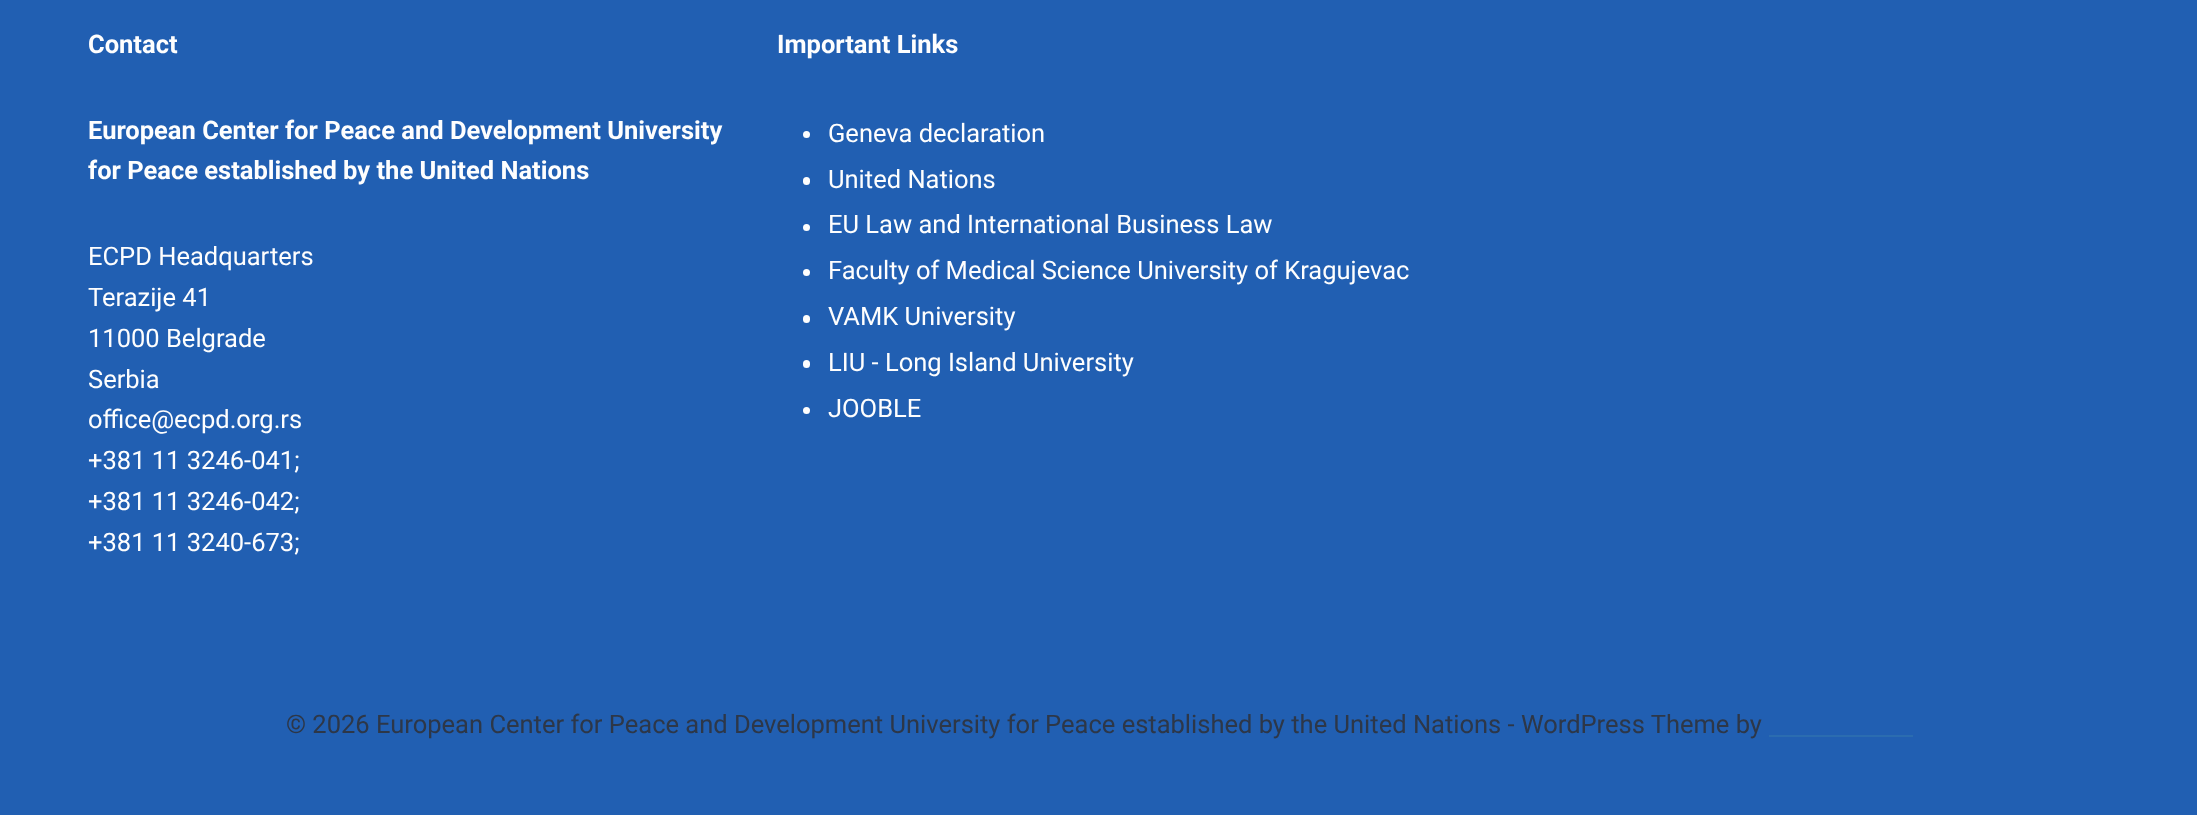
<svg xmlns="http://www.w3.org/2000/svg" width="2197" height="815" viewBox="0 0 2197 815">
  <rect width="100%" height="100%" fill="rgb(33,95,178)"/>
  <g font-family="Roboto" font-size="25.5" font-weight="bold" fill="rgb(254,254,254)">
    <text x="88" y="53">Contact</text>
    <text>
      <tspan x="88" y="139">European Center for Peace and Development University</tspan>
      <tspan x="88" y="179">for Peace established by the United Nations</tspan>
    </text>
  </g>
  <g font-family="Roboto" font-size="25.5" fill="rgb(254,254,254)">
    <text>
      <tspan x="88" y="265">ECPD Headquarters</tspan>
      <tspan x="88" y="306">Terazije 41</tspan>
      <tspan x="88" y="347">11000 Belgrade</tspan>
      <tspan x="88" y="388">Serbia</tspan>
      <tspan x="88" y="428">office@ecpd.org.rs</tspan>
      <tspan x="88" y="469">+381 11 3246-041;</tspan>
      <tspan x="88" y="510">+381 11 3246-042;</tspan>
      <tspan x="88" y="551">+381 11 3240-673;</tspan>
    </text>
  </g>
  <text x="777" y="53" font-family="Roboto" font-size="25.5" font-weight="bold" fill="rgb(254,254,254)">Important Links</text>
  <circle cx="806.5" cy="134.5" r="3.5" fill="rgb(254,254,254)"/>
  <text x="828" y="142" font-family="Roboto" font-size="25.5" fill="rgb(254,254,254)">Geneva declaration</text>
  <rect x="803" y="177" width="7" height="8" rx="3.5" fill="rgb(254,254,254)"/>
  <text x="828" y="188" font-family="Roboto" font-size="25.5" fill="rgb(254,254,254)">United Nations</text>
  <circle cx="806.5" cy="227.5" r="3.5" fill="rgb(254,254,254)"/>
  <text x="828" y="233" font-family="Roboto" font-size="25.5" fill="rgb(254,254,254)">EU Law and International Business Law</text>
  <circle cx="806.5" cy="272.5" r="3.5" fill="rgb(254,254,254)"/>
  <text x="828" y="279" font-family="Roboto" font-size="25.5" fill="rgb(254,254,254)">Faculty of Medical Science University of Kragujevac</text>
  <rect x="803" y="315" width="7" height="8" rx="3.5" fill="rgb(254,254,254)"/>
  <text x="828" y="325" font-family="Roboto" font-size="25.5" fill="rgb(254,254,254)">VAMK University</text>
  <rect x="803" y="360" width="7" height="8" rx="3.5" fill="rgb(254,254,254)"/>
  <text x="828" y="371" font-family="Roboto" font-size="25.5" fill="rgb(254,254,254)">LIU - Long Island University</text>
  <circle cx="806.5" cy="410.5" r="3.5" fill="rgb(254,254,254)"/>
  <text x="828" y="417" font-family="Roboto" font-size="25.5" fill="rgb(254,254,254)">JOOBLE</text>
  <text x="286" y="733" font-family="Roboto" font-size="25.5" fill="rgb(45,55,72)">© 2026 European Center for Peace and Development University for Peace established by the United Nations - WordPress Theme by</text>
  <rect x="1769" y="735" width="144" height="2" fill="rgb(43,108,176)"/>
</svg>
